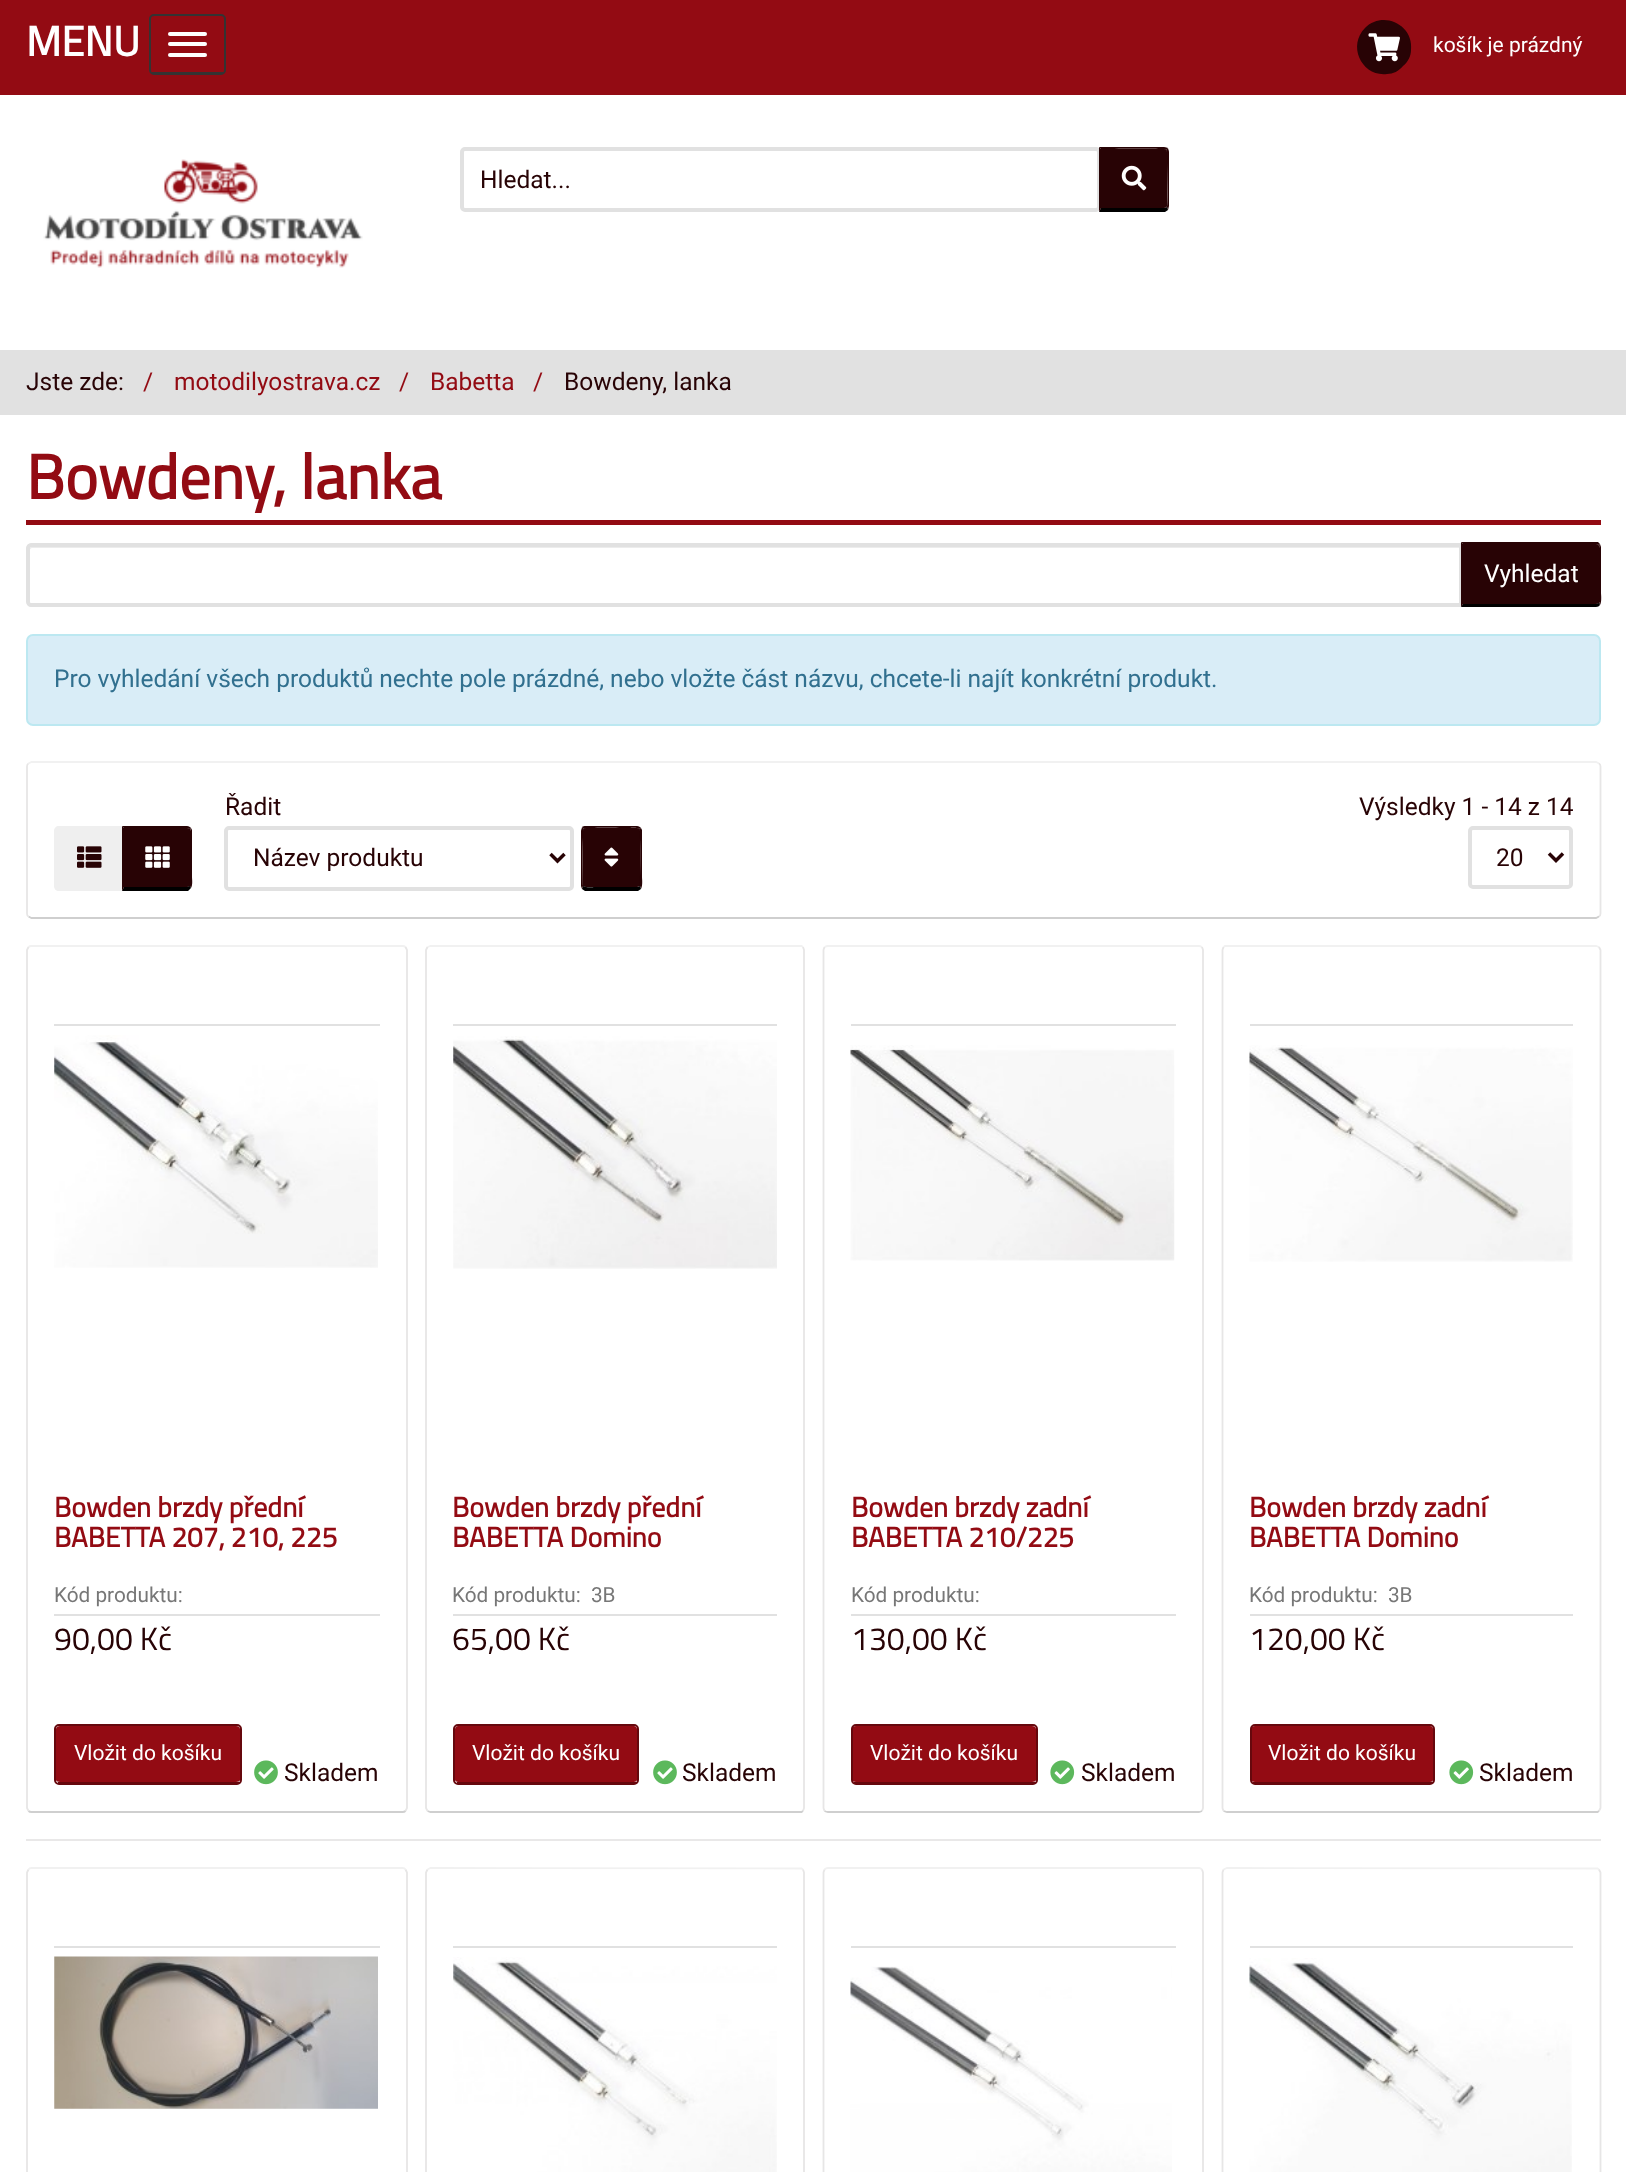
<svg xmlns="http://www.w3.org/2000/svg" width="1626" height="2172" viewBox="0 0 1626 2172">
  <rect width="100%" height="100%" fill="rgb(255,255,255)"/>
  <rect x="0" y="0" width="1626" height="95" fill="rgb(147,11,19)"/>
  <text x="26" y="56" font-family="Titillium Web" font-size="42" font-weight="bold" fill="rgb(255,255,255)">MENU</text>
  <rect x="150" y="15" width="75" height="59" rx="4" fill="none" stroke="rgb(51,51,51)" stroke-width="2"/>
  <rect x="152" y="72" width="72" height="1" fill="rgb(51,51,51)"/>
  <rect x="168" y="32" width="39" height="4" rx="2" fill="rgb(255,255,255)"/>
  <rect x="168" y="42" width="39" height="4" rx="2" fill="rgb(255,255,255)"/>
  <rect x="168" y="53" width="39" height="4" rx="2" fill="rgb(255,255,255)"/>
  <path d="M1365 28C1383 10 1414 25 1411 50C1411 56 1408 62 1403 66C1399 71 1393 74 1387 74C1362 77 1347 46 1365 28Z" fill="rgb(40,3,5)"/>
  <image x="1368" y="33" width="32" height="29" href="pic1.png"/>
  <text x="1433" y="52" font-family="Roboto" font-size="21" fill="rgb(255,255,255)">košík je prázdný</text>
  <image x="43" y="159" width="320" height="109" href="pic2.png"/>
  <rect x="462" y="149" width="637" height="61" rx="3" fill="none" stroke="rgb(225,225,225)" stroke-width="4"/>
  <text x="480" y="188" font-family="Roboto" font-size="24.5" fill="rgb(40,3,5)">Hledat...</text>
  <path d="M1101 149H1164C1166 149 1167 150 1167 152V206C1167 207 1166 208 1164 208H1101Z" fill="rgb(40,3,5)"/>
  <path d="M1099 147L1101 149C1108 149 1165 148 1166 150L1168 148C1167 148 1166 147 1164 147Z" fill="rgb(40,3,5)"/>
  <path d="M1169 206V152C1169 150 1168 149 1168 148L1166 150L1167 152V161C1167 166 1168 206 1167 207L1168 210Z" fill="rgb(40,3,5)"/>
  <path d="M1165 212H1099L1101 208H1165L1167 207L1168 210Z" fill="rgb(0,0,0)"/>
  <path d="M1099 147V212L1101 208V149Z" fill="rgb(40,3,5)"/>
  <image x="1121" y="165" width="26" height="26" href="pic3.png"/>
  <rect x="0" y="350" width="1626" height="65" fill="rgb(225,225,225)"/>
  <text x="26" y="390" font-family="Roboto" font-size="24.5" fill="rgb(40,3,5)">Jste zde:</text>
  <g font-family="Roboto" font-size="24.5" fill="rgb(147,11,19)">
    <text x="143" y="390">/</text>
    <text x="174" y="390">motodilyostrava.cz</text>
    <text x="399" y="390">/</text>
    <text x="430" y="390">Babetta</text>
    <text x="533" y="390">/</text>
  </g>
  <text x="564" y="390" font-family="Roboto" font-size="24.5" fill="rgb(40,3,5)">Bowdeny, lanka</text>
  <rect x="26" y="520" width="1575" height="5" fill="rgb(147,11,19)"/>
  <text x="26" y="499" font-family="Titillium Web" font-size="63" font-weight="bold" fill="rgb(147,11,19)">Bowdeny, lanka</text>
  <path d="M32 548H1460V546H32C30 546 30 548 30 550C30 549 31 548 32 548Z" fill="rgb(236,236,236)"/>
  <path d="M31 545H1461V605H31C29.5 605 28 603.5 28 602V548C28 546.5 29.5 545 31 545Z" fill="none" stroke="rgb(225,225,225)" stroke-width="4"/>
  <path d="M1463 544H1596C1598 544 1600 546 1600 548V602C1600 603 1598 604 1596 604H1463Z" fill="rgb(40,3,5)"/>
  <path d="M1463 544L1461 542H1598L1600 544L1599 545L1596 544Z" fill="rgb(40,3,5)"/>
  <path d="M1600 544L1601 547V593C1601 594 1602 602 1600 605L1599 603H1600V548L1599 545Z" fill="rgb(40,3,5)"/>
  <path d="M1600 605C1599 606 1598 607 1596 607H1461L1463 604H1596L1599 603Z" fill="rgb(0,0,0)"/>
  <path d="M1461 607V542L1463 544V604Z" fill="rgb(40,3,5)"/>
  <text x="1484" y="582" font-family="Roboto" font-size="24.5" fill="rgb(255,255,255)">Vyhledat</text>
  <rect x="27" y="635" width="1573" height="90" rx="6" fill="rgb(217,237,247)" stroke="rgb(188,232,241)" stroke-width="2"/>
  <text x="54" y="687" font-family="Roboto" font-size="24.5" fill="rgb(49,112,143)">Pro vyhledání všech produktů nechte pole prázdné, nebo vložte část názvu, chcete-li najít konkrétní produkt.</text>
  <path d="M28.5 763.5L31.5 762H1596L1599 763.5" fill="none" stroke="rgb(241,241,241)" stroke-width="1.8"/>
  <path d="M1599 763.5C1600 764 1600.5 765.5 1600.5 766.5V913.5C1600.5 914.5 1600 916 1599 916.5" fill="none" stroke="rgb(231,230,230)" stroke-width="1.8"/>
  <path d="M1599 916.5L1596 918H31.5L28.5 916.5" fill="none" stroke="rgb(207,207,207)" stroke-width="1.8"/>
  <path d="M28.5 916.5C27.5 916 27 914.5 27 913.5V766.5C27 765.5 27.5 764 28.5 763.5" fill="none" stroke="rgb(231,230,230)" stroke-width="1.8"/>
  <path d="M59 826H124V891H59C56 891 54 889 54 886V831C54 828 56 826 59 826Z" fill="rgb(239,239,239)"/>
  <image x="77" y="846" width="25" height="22" href="pic4.png"/>
  <path d="M124 828H187C189 828 191 829 191 831V886C191 886 189 887 187 887H124Z" fill="rgb(40,3,5)"/>
  <path d="M122 826L124 828H187L190 829L191 828C190 827 189 826 187 826Z" fill="rgb(40,3,5)"/>
  <path d="M191 828L192 830V877C192 879 193 885 191 888L190 886H191V830L190 829Z" fill="rgb(40,3,5)"/>
  <path d="M191 888L188 891H122L124 887H187L190 886Z" fill="rgb(0,0,0)"/>
  <path d="M124 828L122 826V891L124 887Z" fill="rgb(40,3,5)"/>
  <image x="145" y="846" width="25" height="22" href="pic5.png"/>
  <text x="225" y="815" font-family="Roboto" font-size="24.5" fill="rgb(40,3,5)">Řadit</text>
  <rect x="226" y="828" width="346" height="61" rx="3" fill="none" stroke="rgb(225,225,225)" stroke-width="4"/>
  <path d="M550.5 854L557.5 861L564.5 854" fill="none" stroke="rgb(40,3,5)" stroke-width="3.5"/>
  <text x="253" y="866" font-family="Roboto" font-size="24.5" fill="rgb(40,3,5)">Název produktu</text>
  <path d="M586 828H637C639 828 640 829 640 831V886C640 886 639 887 637 887H586C584 887 583 886 583 886V831C583 829 584 828 586 828Z" fill="rgb(40,3,5)"/>
  <path d="M586 826C584 826 583 826 582 827L584 829C586 827 623 828 628 828C629 828 638 827 639 829L641 828C640 827 639 826 637 826Z" fill="rgb(40,3,5)"/>
  <path d="M641 828L642 830V877C642 879 643 885 641 889L640 886C640 879 641 831 639 829Z" fill="rgb(40,3,5)"/>
  <path d="M585 891L582 889L583 886C586 888 594 887 594 887H638L640 886L641 889L638 891Z" fill="rgb(0,0,0)"/>
  <path d="M581 831V886L582 889L583 886C583 880 582 831 584 829L582 827C582 828 581 830 581 831Z" fill="rgb(40,3,5)"/>
  <image x="604" y="847" width="15" height="20" href="pic6.png"/>
  <text x="1359" y="815" font-family="Roboto" font-size="24.5" fill="rgb(40,3,5)">Výsledky 1 - 14 z 14</text>
  <rect x="1470" y="828" width="101" height="59" rx="3" fill="none" stroke="rgb(225,225,225)" stroke-width="4"/>
  <path d="M1549 853.5L1556 860.5L1563 853.5" fill="none" stroke="rgb(40,3,5)" stroke-width="3.5"/>
  <text x="1496" y="866" font-family="Roboto" font-size="24.5" fill="rgb(40,3,5)">20</text>
  <path d="M28.5 947C29 946.5 30.5 946 31.5 946H402.5C403.5 946 405 946.5 405.5 947" fill="none" stroke="rgb(241,241,241)" stroke-width="1.8"/>
  <path d="M405.5 947L407 950V1808L405.5 1811" fill="none" stroke="rgb(231,230,230)" stroke-width="1.8"/>
  <path d="M405.5 1811C405 1811.5 403.5 1812 402.5 1812H31.5C30.5 1812 29 1811.5 28.5 1811" fill="none" stroke="rgb(207,207,207)" stroke-width="1.8"/>
  <path d="M28.5 1811L27 1808V950L28.5 947" fill="none" stroke="rgb(231,230,230)" stroke-width="1.8"/>
  <rect x="54" y="1024" width="326" height="2" fill="rgb(225,225,225)"/>
  <image x="54" y="1035" width="324" height="233" href="pic7.png"/>
  <g font-family="Titillium Web" font-size="28" font-weight="bold" fill="rgb(147,11,19)">
    <text>
      <tspan x="54" y="1517">Bowden brzdy přední</tspan>
      <tspan x="54" y="1547">BABETTA 207, 210, 225</tspan>
    </text>
  </g>
  <text x="54" y="1602" font-family="Roboto" font-size="20.75" fill="rgb(119,119,119)">Kód produktu:</text>
  <rect x="54" y="1614" width="326" height="2" fill="rgb(225,225,225)"/>
  <text x="54" y="1650" font-family="Titillium Web" font-size="32" fill="rgb(40,3,5)">90,00 Kč</text>
  <path d="M60 1726H236C238 1726 240 1727 240 1729V1780C240 1781 238 1782 236 1782H60C58 1782 56 1781 56 1780V1729C56 1727 58 1726 60 1726Z" fill="rgb(147,11,19)"/>
  <rect x="55" y="1725" width="186" height="59" rx="4" fill="none" stroke="rgb(102,8,13)" stroke-width="2"/>
  <rect x="58" y="1782" width="182" height="1" fill="rgb(102,8,13)"/>
  <text x="74" y="1760" font-family="Roboto" font-size="21" fill="rgb(255,255,255)">Vložit do košíku</text>
  <image x="254" y="1760" width="24" height="25" href="pic8.png"/>
  <text x="284" y="1781" font-family="Roboto" font-size="24.5" fill="rgb(40,3,5)">Skladem</text>
  <path d="M427.5 947L430.5 946H801.5L803 947" fill="none" stroke="rgb(241,241,241)" stroke-width="1.8"/>
  <path d="M803 947L804 950V1808L803 1811" fill="none" stroke="rgb(231,230,230)" stroke-width="1.8"/>
  <path d="M803 1811L801.5 1812H492H430.5L427.5 1811" fill="none" stroke="rgb(207,207,207)" stroke-width="1.8"/>
  <path d="M427.5 1811L426 1808V950L427.5 947" fill="none" stroke="rgb(231,230,230)" stroke-width="1.8"/>
  <rect x="453" y="1024" width="324" height="2" fill="rgb(225,225,225)"/>
  <image x="453" y="1036" width="324" height="233" href="pic9.png"/>
  <g font-family="Titillium Web" font-size="28" font-weight="bold" fill="rgb(147,11,19)">
    <text>
      <tspan x="452" y="1517">Bowden brzdy přední</tspan>
      <tspan x="452" y="1547">BABETTA Domino</tspan>
    </text>
  </g>
  <text x="452" y="1602" font-family="Roboto" font-size="20.75" fill="rgb(119,119,119)" xml:space="preserve">Kód produktu:  3B</text>
  <rect x="453" y="1614" width="324" height="2" fill="rgb(225,225,225)"/>
  <text x="452" y="1650" font-family="Titillium Web" font-size="32" fill="rgb(40,3,5)">65,00 Kč</text>
  <path d="M458 1726H634C635 1726 637 1727 637 1729V1780C637 1781 635 1782 634 1782H458C457 1782 455 1781 455 1780V1729C455 1727 457 1726 458 1726Z" fill="rgb(147,11,19)"/>
  <rect x="454" y="1725" width="184" height="59" rx="4" fill="none" stroke="rgb(102,8,13)" stroke-width="2"/>
  <rect x="457" y="1782" width="180" height="1" fill="rgb(102,8,13)"/>
  <text x="472" y="1760" font-family="Roboto" font-size="21" fill="rgb(255,255,255)">Vložit do košíku</text>
  <image x="653" y="1760" width="24" height="25" href="pic8.png"/>
  <text x="682" y="1781" font-family="Roboto" font-size="24.5" fill="rgb(40,3,5)">Skladem</text>
  <path d="M824.5 947C825.5 946.5 826.5 946 828 946H1199C1200 946 1201 946.5 1202 947" fill="none" stroke="rgb(241,241,241)" stroke-width="1.8"/>
  <path d="M1202 947L1203 950V1808L1202 1811" fill="none" stroke="rgb(231,230,230)" stroke-width="1.8"/>
  <path d="M1202 1811C1201 1811.5 1200 1812 1199 1812H828C826.5 1812 825.5 1811.5 824.5 1811" fill="none" stroke="rgb(207,207,207)" stroke-width="1.8"/>
  <path d="M824.5 1811L823.5 1808V950L824.5 947" fill="none" stroke="rgb(231,230,230)" stroke-width="1.8"/>
  <rect x="851" y="1024" width="325" height="2" fill="rgb(225,225,225)"/>
  <image x="850" y="1045" width="325" height="216" href="pic10.png"/>
  <g font-family="Titillium Web" font-size="28" font-weight="bold" fill="rgb(147,11,19)">
    <text>
      <tspan x="851" y="1517">Bowden brzdy zadní</tspan>
      <tspan x="851" y="1547">BABETTA 210/225</tspan>
    </text>
  </g>
  <text x="851" y="1602" font-family="Roboto" font-size="20.75" fill="rgb(119,119,119)">Kód produktu:</text>
  <rect x="851" y="1614" width="325" height="2" fill="rgb(225,225,225)"/>
  <text x="851" y="1650" font-family="Titillium Web" font-size="32" fill="rgb(40,3,5)">130,00 Kč</text>
  <path d="M856 1726H1032C1034 1726 1036 1727 1036 1729V1780C1036 1781 1034 1782 1032 1782H856C854 1782 852 1781 852 1780V1729C852 1727 854 1726 856 1726Z" fill="rgb(147,11,19)"/>
  <rect x="852" y="1725" width="185" height="59" rx="4" fill="none" stroke="rgb(102,8,13)" stroke-width="2"/>
  <rect x="854" y="1782" width="182" height="1" fill="rgb(102,8,13)"/>
  <text x="870" y="1760" font-family="Roboto" font-size="21" fill="rgb(255,255,255)">Vložit do košíku</text>
  <image x="1050" y="1760" width="25" height="25" href="pic11.png"/>
  <text x="1081" y="1781" font-family="Roboto" font-size="24.5" fill="rgb(40,3,5)">Skladem</text>
  <path d="M1223.5 947L1225 946H1534.5H1596L1599 947" fill="none" stroke="rgb(241,241,241)" stroke-width="1.8"/>
  <path d="M1599 947L1600.5 950V1808L1599 1811" fill="none" stroke="rgb(231,230,230)" stroke-width="1.8"/>
  <path d="M1599 1811L1597.5 1812H1288.5H1227L1223.5 1811" fill="none" stroke="rgb(207,207,207)" stroke-width="1.8"/>
  <path d="M1223.5 1811L1222.5 1808V950L1223.5 947" fill="none" stroke="rgb(231,230,230)" stroke-width="1.8"/>
  <rect x="1250" y="1024" width="323" height="2" fill="rgb(225,225,225)"/>
  <image x="1249" y="1045" width="324" height="217" href="pic12.png"/>
  <g font-family="Titillium Web" font-size="28" font-weight="bold" fill="rgb(147,11,19)">
    <text>
      <tspan x="1249" y="1517">Bowden brzdy zadní</tspan>
      <tspan x="1249" y="1547">BABETTA Domino</tspan>
    </text>
  </g>
  <text x="1249" y="1602" font-family="Roboto" font-size="20.75" fill="rgb(119,119,119)" xml:space="preserve">Kód produktu:  3B</text>
  <rect x="1250" y="1614" width="323" height="2" fill="rgb(225,225,225)"/>
  <text x="1249" y="1650" font-family="Titillium Web" font-size="32" fill="rgb(40,3,5)">120,00 Kč</text>
  <path d="M1255 1726H1430C1432 1726 1433 1727 1433 1729V1780C1433 1781 1432 1782 1430 1782H1255C1253 1782 1251 1781 1251 1780V1729C1251 1727 1253 1726 1255 1726Z" fill="rgb(147,11,19)"/>
  <rect x="1251" y="1725" width="183" height="59" rx="4" fill="none" stroke="rgb(102,8,13)" stroke-width="2"/>
  <rect x="1253" y="1782" width="180" height="1" fill="rgb(102,8,13)"/>
  <text x="1268" y="1760" font-family="Roboto" font-size="21" fill="rgb(255,255,255)">Vložit do košíku</text>
  <image x="1449" y="1760" width="25" height="25" href="pic11.png"/>
  <text x="1479" y="1781" font-family="Roboto" font-size="24.5" fill="rgb(40,3,5)">Skladem</text>
  <rect x="26" y="1839" width="1575" height="2" fill="rgb(233,232,232)"/>
  <path d="M28.5 1869.5C29 1868.5 30.5 1868 31.5 1868H402.5C403.5 1868 405 1868.5 405.5 1869.5" fill="none" stroke="rgb(241,241,241)" stroke-width="1.8"/>
  <path d="M405.5 1869.5L407 1872.5V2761.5L405.5 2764.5" fill="none" stroke="rgb(231,230,230)" stroke-width="1.8"/>
  <path d="M28.5 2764.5L27 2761.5V1872.5L28.5 1869.5" fill="none" stroke="rgb(231,230,230)" stroke-width="1.8"/>
  <rect x="54" y="1946" width="326" height="2" fill="rgb(225,225,225)"/>
  <image x="54" y="1956" width="324" height="153" href="pic13.png"/>
  <path d="M427.5 1869.5L430.5 1868L801.5 1868.5L803 1869.5" fill="none" stroke="rgb(241,241,241)" stroke-width="1.8"/>
  <path d="M803 1869.5L804 1872.5V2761.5L803 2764.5" fill="none" stroke="rgb(231,230,230)" stroke-width="1.8"/>
  <path d="M427.5 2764.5L426 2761.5V1872.5L427.5 1869.5" fill="none" stroke="rgb(231,230,230)" stroke-width="1.8"/>
  <rect x="453" y="1946" width="324" height="2" fill="rgb(225,225,225)"/>
  <image x="453" y="1957" width="324" height="215" href="pic14.png"/>
  <path d="M824.5 1869.5C825.5 1868.5 826.5 1868 828 1868H1199C1200 1868 1201 1868.5 1202 1869.5" fill="none" stroke="rgb(241,241,241)" stroke-width="1.8"/>
  <path d="M1202 1869.5L1203 1872.5V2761.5L1202 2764.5" fill="none" stroke="rgb(231,230,230)" stroke-width="1.8"/>
  <path d="M824.5 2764.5L823.5 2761.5V1872.5L824.5 1869.5" fill="none" stroke="rgb(231,230,230)" stroke-width="1.8"/>
  <rect x="851" y="1946" width="325" height="2" fill="rgb(225,225,225)"/>
  <image x="850" y="1966" width="322" height="206" href="pic15.png"/>
  <path d="M1223.5 1869.5L1227 1868L1597.5 1868.5L1599 1869.5" fill="none" stroke="rgb(241,241,241)" stroke-width="1.8"/>
  <path d="M1599 1869.5L1600.5 1872.5V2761.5L1599 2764.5" fill="none" stroke="rgb(231,230,230)" stroke-width="1.8"/>
  <path d="M1223.5 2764.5L1222.5 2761.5V1872.5L1223.5 1869.5" fill="none" stroke="rgb(231,230,230)" stroke-width="1.8"/>
  <rect x="1250" y="1946" width="323" height="2" fill="rgb(225,225,225)"/>
  <image x="1249" y="1958" width="323" height="214" href="pic16.png"/>
</svg>
